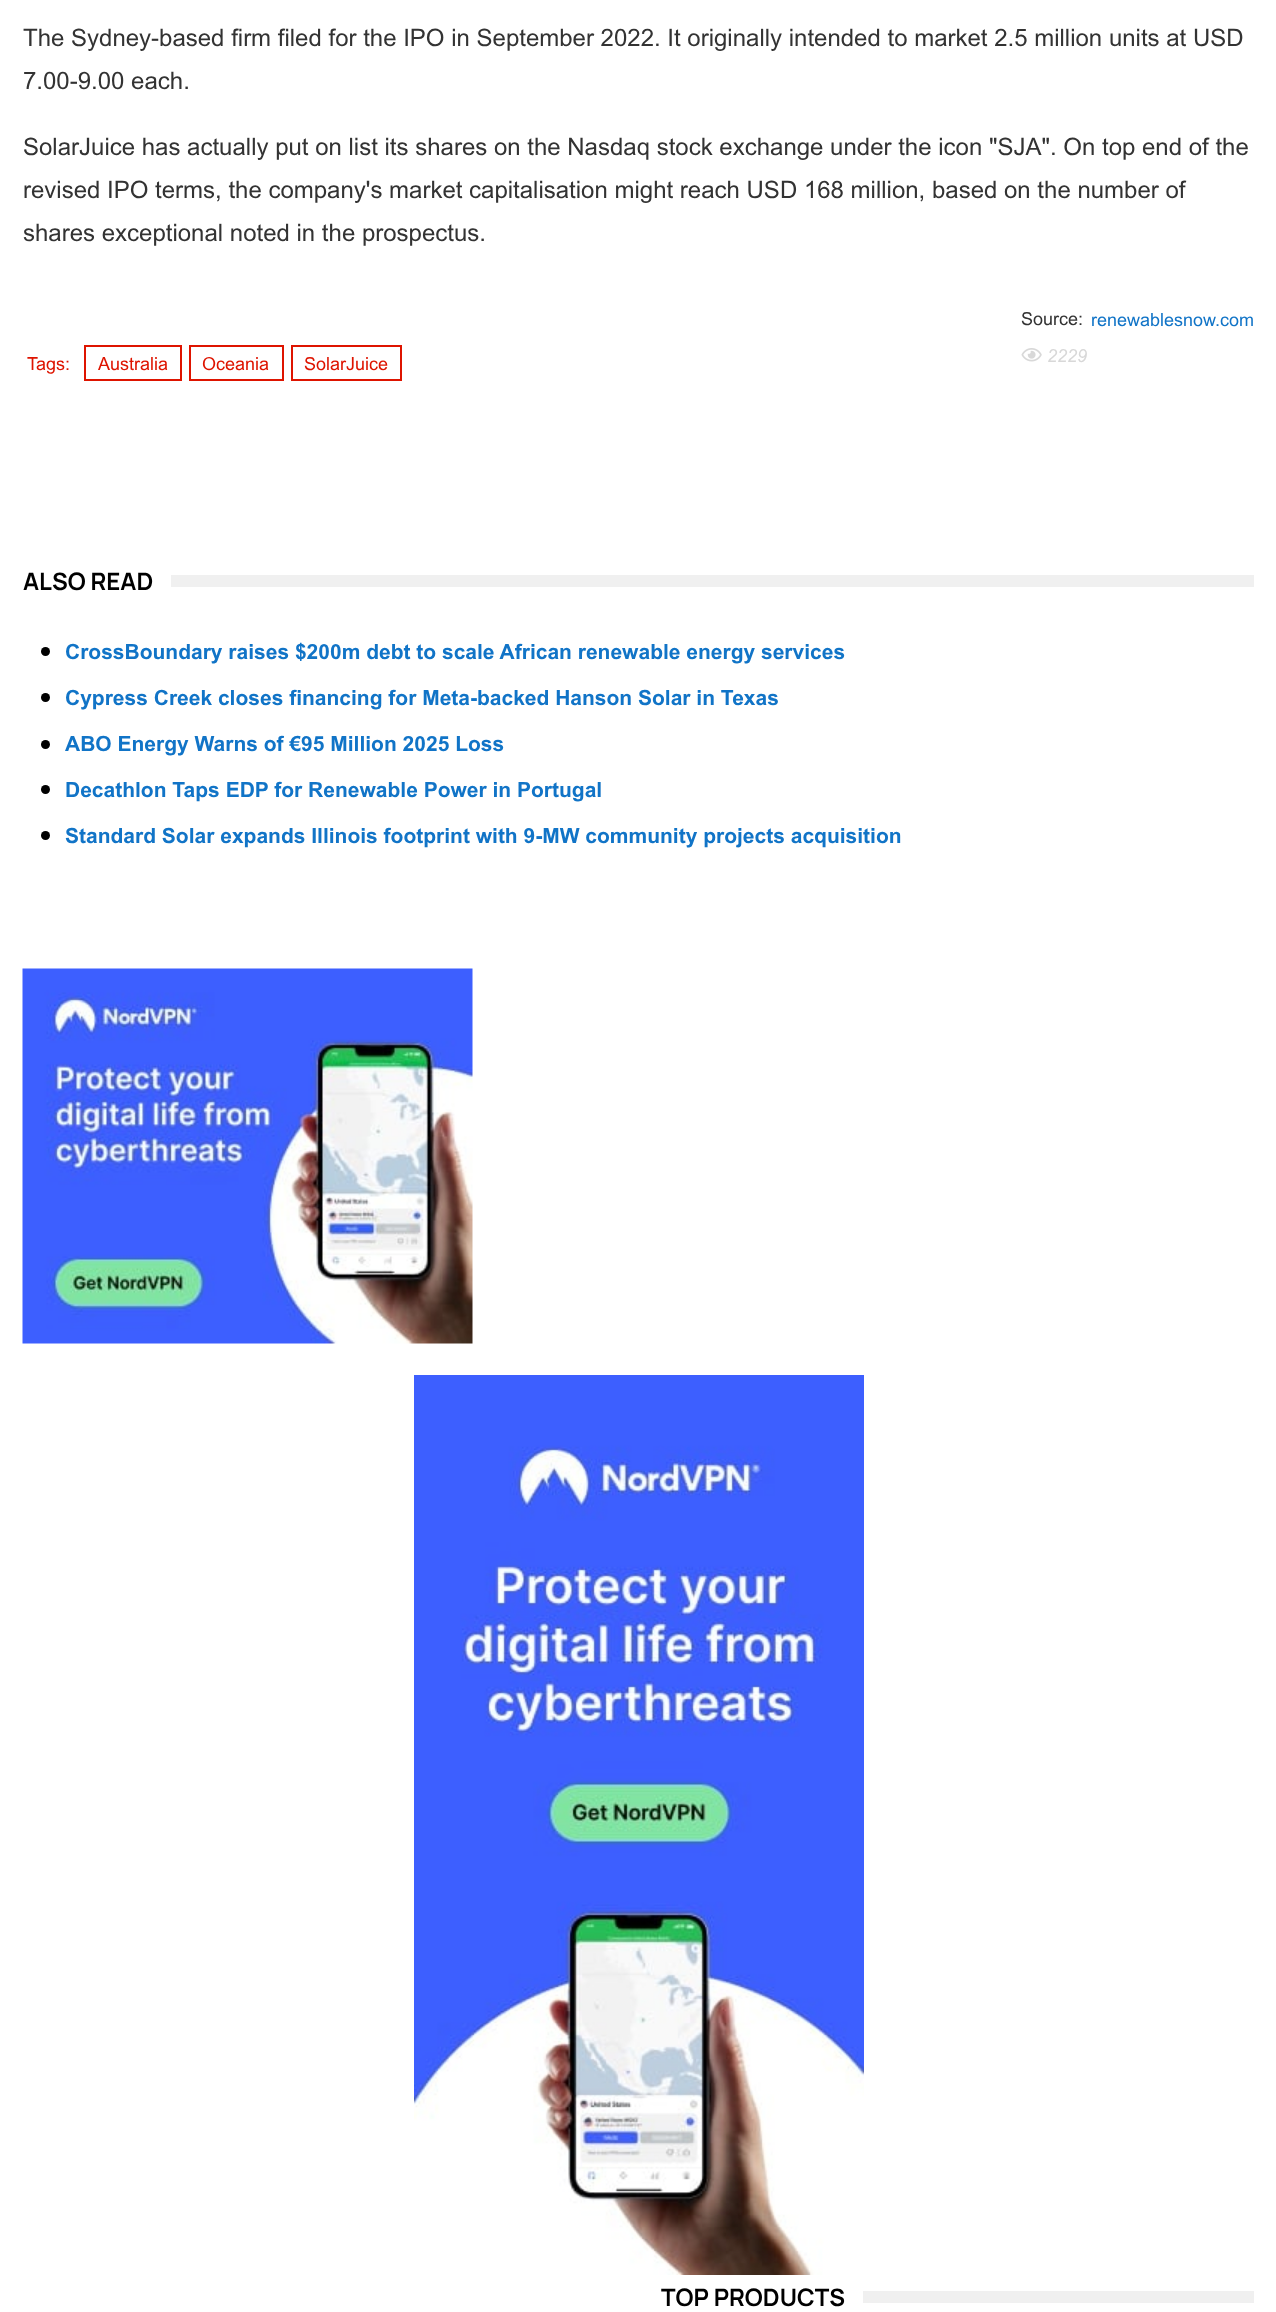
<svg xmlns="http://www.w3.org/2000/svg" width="1276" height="2312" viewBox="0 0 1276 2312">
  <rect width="100%" height="100%" fill="rgb(255,255,255)"/>
  <g font-family="Arial" font-size="24" fill="rgb(51,51,51)">
    <text>
      <tspan x="23" y="46">The Sydney-based firm filed for the IPO in September 2022. It originally intended to market 2.5 million units at USD</tspan>
      <tspan x="23" y="89">7.00-9.00 each.</tspan>
    </text>
    <text>
      <tspan x="23" y="155">SolarJuice has actually put on list its shares on the Nasdaq stock exchange under the icon "SJA". On top end of the</tspan>
      <tspan x="23" y="198">revised IPO terms, the company's market capitalisation might reach USD 168 million, based on the number of</tspan>
      <tspan x="23" y="241">shares exceptional noted in the prospectus.</tspan>
    </text>
  </g>
  <text x="1021" y="325" font-family="Arial" font-size="18" fill="rgb(51,51,51)">Source:</text>
  <text x="1091" y="326" font-family="Arial" font-size="18" fill="rgb(17,116,199)">renewablesnow.com</text>
  <image x="1021" y="348" width="21" height="14" href="pic1.png"/>
  <text x="1047" y="362" font-family="Arial" font-size="18" font-style="italic" fill="rgb(216,216,216)">2229</text>
  <text x="27" y="370" font-family="Arial" font-size="18" fill="rgb(222,20,0)">Tags:</text>
  <rect x="85" y="346" width="96" height="34" fill="none" stroke="rgb(222,20,0)" stroke-width="2"/>
  <text x="98" y="370" font-family="Arial" font-size="18" fill="rgb(222,20,0)">Australia</text>
  <rect x="190" y="346" width="93" height="34" fill="none" stroke="rgb(222,20,0)" stroke-width="2"/>
  <text x="202" y="370" font-family="Arial" font-size="18" fill="rgb(222,20,0)">Oceania</text>
  <rect x="292" y="346" width="109" height="34" fill="none" stroke="rgb(222,20,0)" stroke-width="2"/>
  <text x="304" y="370" font-family="Arial" font-size="18" fill="rgb(222,20,0)">SolarJuice</text>
  <text x="23" y="590" font-family="Manrope" font-size="24" font-weight="bold" fill="rgb(0,0,0)">ALSO READ</text>
  <rect x="171" y="575" width="1083" height="12" fill="rgb(240,240,240)"/>
  <circle cx="45.5" cy="651.5" r="4.5" fill="rgb(0,0,0)"/>
  <text x="65" y="659" font-family="Arial" font-size="21" font-weight="bold" fill="rgb(17,116,199)">CrossBoundary raises $200m debt to scale African renewable energy services</text>
  <circle cx="45.5" cy="697.5" r="4.5" fill="rgb(0,0,0)"/>
  <text x="65" y="705" font-family="Arial" font-size="21" font-weight="bold" fill="rgb(17,116,199)">Cypress Creek closes financing for Meta-backed Hanson Solar in Texas</text>
  <circle cx="45.5" cy="744.5" r="4.5" fill="rgb(0,0,0)"/>
  <text x="65" y="751" font-family="Arial" font-size="21" font-weight="bold" fill="rgb(17,116,199)">ABO Energy Warns of €95 Million 2025 Loss</text>
  <circle cx="45.5" cy="789.5" r="4.5" fill="rgb(0,0,0)"/>
  <text x="65" y="797" font-family="Arial" font-size="21" font-weight="bold" fill="rgb(17,116,199)">Decathlon Taps EDP for Renewable Power in Portugal</text>
  <circle cx="45.5" cy="835.5" r="4.5" fill="rgb(0,0,0)"/>
  <text x="65" y="843" font-family="Arial" font-size="21" font-weight="bold" fill="rgb(17,116,199)">Standard Solar expands Illinois footprint with 9-MW community projects acquisition</text>
  <image x="22" y="968" width="451" height="376" href="pic2.png"/>
  <image x="414" y="1375" width="450" height="900" href="pic3.png"/>
  <text x="661" y="2306" font-family="Manrope" font-size="24" font-weight="bold" fill="rgb(0,0,0)">TOP PRODUCTS</text>
  <rect x="863" y="2291" width="391" height="12" fill="rgb(240,240,240)"/>
</svg>
